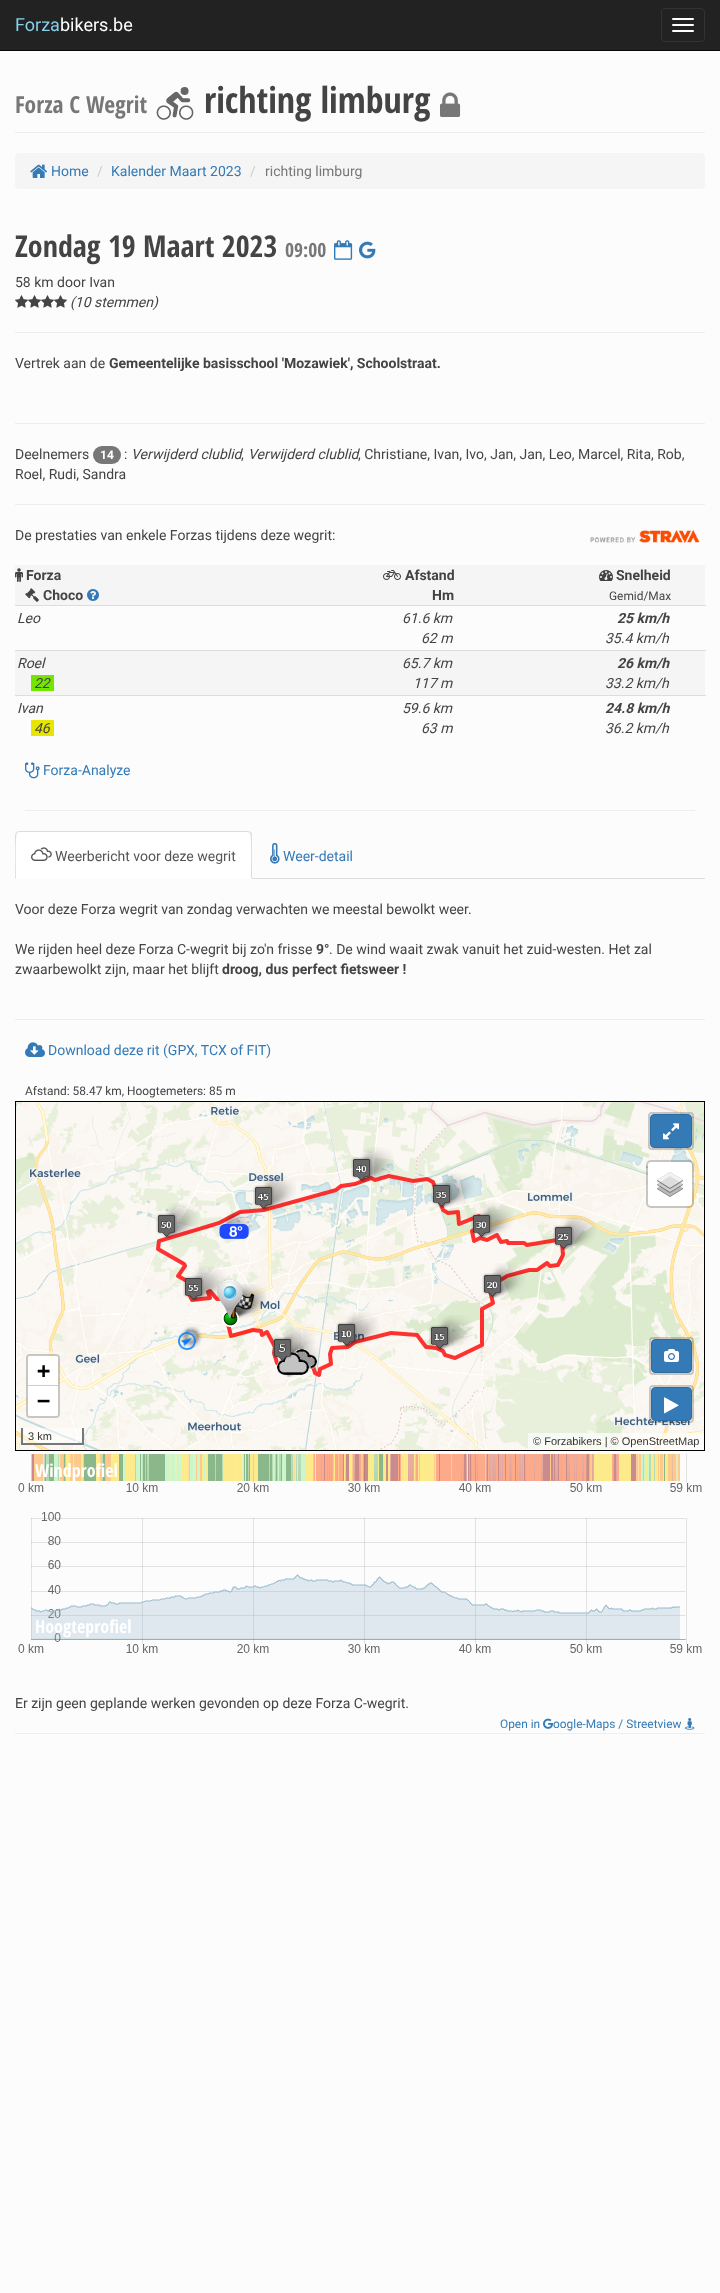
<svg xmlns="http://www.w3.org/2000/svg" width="720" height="2293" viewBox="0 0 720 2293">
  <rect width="100%" height="100%" fill="rgb(252,252,252)"/>
  <rect x="0" y="0" width="720" height="50" fill="rgb(34,34,34)"/>
  <rect x="0" y="50" width="720" height="1" fill="rgb(8,8,8)"/>
  <text x="15" y="31" font-family="Roboto" font-size="18" fill="rgb(136,207,236)">Forza</text>
  <text x="60" y="31" font-family="Roboto" font-size="18" fill="rgb(255,255,255)">bikers.be</text>
  <rect x="661.5" y="8.5" width="43" height="33" rx="3.5" fill="none" stroke="rgb(51,51,51)"/>
  <rect x="672" y="18" width="22" height="2" rx="1" fill="rgb(255,255,255)"/>
  <rect x="672" y="24" width="22" height="2" rx="1" fill="rgb(255,255,255)"/>
  <rect x="672" y="30" width="22" height="2" rx="1" fill="rgb(255,255,255)"/>
  <rect x="15" y="132" width="690" height="1" fill="rgb(238,238,238)"/>
  <text x="15" y="113" font-family="Open Sans Condensed" font-size="23.5" font-weight="bold" fill="rgb(119,119,119)">Forza C Wegrit</text>
  <image x="156" y="87" width="38" height="33" href="pic1.png"/>
  <text x="204" y="113" font-family="Open Sans Condensed" font-size="36" font-weight="bold" fill="rgb(68,68,68)">richting limburg</text>
  <image x="440" y="92" width="21" height="25" href="pic2.png"/>
  <rect x="15" y="153" width="690" height="36" rx="4" fill="rgb(245,245,245)"/>
  <image x="30" y="164" width="17" height="14" href="pic3.png"/>
  <text x="51" y="176" font-family="Roboto" font-size="14" fill="rgb(51,122,183)">Home</text>
  <text x="97" y="176" font-family="Roboto" font-size="14" fill="rgb(204,204,204)">/</text>
  <text x="111" y="176" font-family="Roboto" font-size="14" fill="rgb(51,122,183)">Kalender Maart 2023</text>
  <text x="250" y="176" font-family="Roboto" font-size="14" fill="rgb(204,204,204)">/</text>
  <text x="265" y="176" font-family="Roboto" font-size="14" fill="rgb(119,119,119)">richting limburg</text>
  <text x="15" y="257" font-family="Open Sans Condensed" font-size="30" font-weight="bold" fill="rgb(68,68,68)">Zondag 19 Maart 2023</text>
  <text x="285" y="257" font-family="Open Sans Condensed" font-size="19.5" font-weight="bold" fill="rgb(119,119,119)">09:00</text>
  <image x="334" y="240" width="19" height="20" href="pic4.png"/>
  <image x="359" y="241" width="17" height="18" href="pic5.png"/>
  <text x="15" y="287" font-family="Roboto" font-size="14" fill="rgb(68,68,68)">58 km door Ivan</text>
  <image x="15" y="295" width="13" height="13" href="pic6.png"/>
  <image x="28" y="295" width="13" height="13" href="pic6.png"/>
  <image x="41" y="295" width="13" height="13" href="pic6.png"/>
  <image x="54" y="295" width="13" height="13" href="pic6.png"/>
  <text x="70" y="307" font-family="Roboto" font-size="14" font-style="italic" fill="rgb(68,68,68)">(10 stemmen)</text>
  <rect x="15" y="332" width="690" height="1" fill="rgb(238,238,238)"/>
  <text x="15" y="368" font-family="Roboto" font-size="14" fill="rgb(68,68,68)">Vertrek aan de</text>
  <text x="109" y="368" font-family="Roboto" font-size="14" font-weight="bold" fill="rgb(68,68,68)">Gemeentelijke basisschool 'Mozawiek', Schoolstraat.</text>
  <rect x="15" y="423" width="690" height="1" fill="rgb(238,238,238)"/>
  <text x="15" y="459" font-family="Roboto" font-size="14" fill="rgb(68,68,68)">Deelnemers</text>
  <rect x="93" y="446" width="28" height="18" rx="9" fill="rgb(119,119,119)"/>
  <text x="100" y="459" font-family="Roboto" font-size="12" font-weight="bold" fill="rgb(255,255,255)">14</text>
  <text x="124" y="459" font-family="Roboto" font-size="14" fill="rgb(68,68,68)">:</text>
  <g font-family="Roboto" font-size="14" font-style="italic" fill="rgb(68,68,68)">
    <text x="131" y="459">Verwijderd clublid</text>
    <text x="248" y="459">Verwijderd clublid</text>
  </g>
  <g font-family="Roboto" font-size="14" fill="rgb(68,68,68)">
    <text x="358" y="459">, Christiane, Ivan, Ivo, Jan, Jan, Leo, Marcel, Rita, Rob,</text>
    <text x="241" y="459">,</text>
    <text x="15" y="479">Roel, Rudi, Sandra</text>
  </g>
  <rect x="15" y="504" width="690" height="1" fill="rgb(238,238,238)"/>
  <text x="15" y="540" font-family="Roboto" font-size="14" fill="rgb(68,68,68)">De prestaties van enkele Forzas tijdens deze wegrit:</text>
  <image x="590" y="530" width="110" height="13" href="pic7.png"/>
  <rect x="15" y="565" width="690" height="40" fill="rgb(245,245,245)"/>
  <image x="15" y="568" width="8" height="14" href="pic8.png"/>
  <text x="26" y="580" font-family="Roboto" font-size="14" font-weight="bold" fill="rgb(68,68,68)">Forza</text>
  <image x="25" y="588" width="14" height="14" href="pic9.png"/>
  <text x="43" y="600" font-family="Roboto" font-size="14" font-weight="bold" fill="rgb(68,68,68)">Choco</text>
  <image x="87" y="589" width="12" height="12" href="pic10.png"/>
  <image x="383" y="570" width="18" height="10" href="pic11.png"/>
  <g font-family="Roboto" font-size="14" font-weight="bold" fill="rgb(68,68,68)">
    <text x="405" y="580">Afstand</text>
    <text x="432" y="600">Hm</text>
  </g>
  <image x="599" y="570" width="14" height="11" href="pic12.png"/>
  <text x="616" y="580" font-family="Roboto" font-size="14" font-weight="bold" fill="rgb(68,68,68)">Snelheid</text>
  <text x="609" y="600" font-family="Roboto" font-size="11.9" fill="rgb(68,68,68)">Gemid/Max</text>
  <rect x="15" y="605" width="691" height="1" fill="rgb(221,221,221)"/>
  <g font-family="Roboto" font-size="14" font-style="italic" fill="rgb(68,68,68)">
    <text x="17" y="623">Leo</text>
    <text x="402" y="623">61.6 km</text>
    <text x="421" y="643">62 m</text>
  </g>
  <text x="617" y="623" font-family="Roboto" font-size="14" font-weight="bold" font-style="italic" fill="rgb(68,68,68)">25 km/h</text>
  <text x="605" y="643" font-family="Roboto" font-size="14" font-style="italic" fill="rgb(68,68,68)">35.4 km/h</text>
  <rect x="15" y="651" width="690" height="44" fill="rgb(245,245,245)"/>
  <rect x="15" y="650" width="691" height="1" fill="rgb(221,221,221)"/>
  <text x="17" y="668" font-family="Roboto" font-size="14" font-style="italic" fill="rgb(68,68,68)">Roel</text>
  <rect x="31" y="675" width="23" height="16" fill="rgb(115,230,0)"/>
  <g font-family="Roboto" font-size="14" font-style="italic" fill="rgb(68,68,68)">
    <text x="34" y="688">22</text>
    <text x="402" y="668">65.7 km</text>
    <text x="413" y="688">117 m</text>
  </g>
  <text x="617" y="668" font-family="Roboto" font-size="14" font-weight="bold" font-style="italic" fill="rgb(68,68,68)">26 km/h</text>
  <text x="605" y="688" font-family="Roboto" font-size="14" font-style="italic" fill="rgb(68,68,68)">33.2 km/h</text>
  <rect x="15" y="695" width="691" height="1" fill="rgb(221,221,221)"/>
  <text x="17" y="713" font-family="Roboto" font-size="14" font-style="italic" fill="rgb(68,68,68)">Ivan</text>
  <rect x="31" y="720" width="23" height="16" fill="rgb(230,230,0)"/>
  <g font-family="Roboto" font-size="14" font-style="italic" fill="rgb(68,68,68)">
    <text x="34" y="733">46</text>
    <text x="402" y="713">59.6 km</text>
    <text x="421" y="733">63 m</text>
  </g>
  <text x="605" y="713" font-family="Roboto" font-size="14" font-weight="bold" font-style="italic" fill="rgb(68,68,68)">24.8 km/h</text>
  <text x="605" y="733" font-family="Roboto" font-size="14" font-style="italic" fill="rgb(68,68,68)">36.2 km/h</text>
  <image x="25" y="762" width="15" height="17" href="pic13.png"/>
  <text x="43" y="775" font-family="Roboto" font-size="14" fill="rgb(51,122,183)">Forza-Analyze</text>
  <rect x="25" y="810" width="670" height="1" fill="rgb(238,238,238)"/>
  <rect x="252" y="878" width="453" height="1" fill="rgb(221,221,221)"/>
  <path d="M19 831H248C250 831 252 833 252 835V879H15V835C15 833 17 831 19 831Z" fill="rgb(255,255,255)"/>
  <path d="M19 831L16 832L17 833L19 832H248L250 833L251 832L248 831Z" fill="rgb(221,221,221)"/>
  <path d="M252 879V835C252 834 252 833 251 832L250 833C252 835 251 873 251 878Z" fill="rgb(221,221,221)"/>
  <path d="M15 879L16 878C16 873 15 835 17 833L16 832L15 835Z" fill="rgb(221,221,221)"/>
  <image x="31" y="847" width="21" height="14" href="pic14.png"/>
  <text x="55" y="861" font-family="Roboto" font-size="14" fill="rgb(85,85,85)">Weerbericht voor deze wegrit</text>
  <image x="270" y="842" width="10" height="22" href="pic15.png"/>
  <text x="283" y="861" font-family="Roboto" font-size="14" fill="rgb(51,122,183)">Weer-detail</text>
  <g font-family="Roboto" font-size="14" fill="rgb(68,68,68)">
    <text x="15" y="914">Voor deze Forza wegrit van zondag verwachten we meestal bewolkt weer.</text>
    <text x="15" y="954">We rijden heel deze Forza C-wegrit bij zo'n frisse</text>
  </g>
  <text x="316" y="954" font-family="Roboto" font-size="14" font-weight="bold" fill="rgb(68,68,68)">9°</text>
  <g font-family="Roboto" font-size="14" fill="rgb(68,68,68)">
    <text x="329" y="954">. De wind waait zwak vanuit het zuid-westen. Het zal</text>
    <text x="15" y="974">zwaarbewolkt zijn, maar het blijft</text>
  </g>
  <text x="222" y="974" font-family="Roboto" font-size="14" font-weight="bold" fill="rgb(68,68,68)">droog, dus perfect fietsweer !</text>
  <rect x="15" y="1019" width="690" height="1" fill="rgb(238,238,238)"/>
  <image x="25" y="1042" width="20" height="15" href="pic16.png"/>
  <text x="48" y="1055" font-family="Roboto" font-size="14" fill="rgb(51,122,183)">Download deze rit (GPX, TCX of FIT)</text>
  <text x="25" y="1095" font-family="Roboto" font-size="11.9" fill="rgb(68,68,68)">Afstand: 58.47 km, Hoogtemeters: 85 m</text>
  <rect x="15.5" y="1101.5" width="689" height="349" fill="none" stroke="rgb(0,0,0)"/>
  <image x="16" y="1102" width="228" height="214" href="pic17.png"/>
  <image x="244" y="1102" width="256" height="214" href="pic18.png"/>
  <image x="500" y="1102" width="204" height="214" href="pic19.png"/>
  <image x="16" y="1316" width="228" height="134" href="pic20.png"/>
  <image x="244" y="1316" width="256" height="134" href="pic21.png"/>
  <image x="500" y="1316" width="204" height="134" href="pic22.png"/>
  <image x="156" y="1174" width="409" height="203" href="pic56.png"/>
  <image x="359" y="1147" width="35" height="35" href="pic23.png"/>
  <image x="261" y="1175" width="35" height="35" href="pic24.png"/>
  <image x="439" y="1173" width="35" height="35" href="pic25.png"/>
  <image x="164" y="1203" width="35" height="35" href="pic26.png"/>
  <image x="223" y="1211" width="29" height="28" href="pic27.png"/>
  <image x="479" y="1203" width="35" height="35" href="pic28.png"/>
  <image x="561" y="1215" width="35" height="35" href="pic29.png"/>
  <image x="191" y="1266" width="35" height="35" href="pic30.png"/>
  <image x="235" y="1284" width="31" height="34" href="pic31.png"/>
  <image x="490" y="1263" width="35" height="35" href="pic32.png"/>
  <image x="235" y="1284" width="31" height="34" href="pic33.png"/>
  <image x="180" y="1326" width="23" height="22" href="pic34.png"/>
  <image x="285" y="1342" width="35" height="35" href="pic38.png"/>
  <image x="280" y="1327" width="35" height="33" href="pic35.png"/>
  <image x="344" y="1312" width="35" height="35" href="pic36.png"/>
  <image x="437" y="1315" width="35" height="35" href="pic37.png"/>
  <image x="351" y="1157" width="21" height="25" href="pic39.png"/>
  <image x="253" y="1185" width="21" height="25" href="pic40.png"/>
  <image x="431" y="1183" width="21" height="25" href="pic41.png"/>
  <image x="156" y="1213" width="21" height="25" href="pic42.png"/>
  <image x="219" y="1224" width="30" height="15" href="pic43.png"/>
  <image x="471" y="1213" width="21" height="25" href="pic44.png"/>
  <image x="553" y="1225" width="21" height="25" href="pic45.png"/>
  <image x="183" y="1276" width="21" height="25" href="pic46.png"/>
  <image x="222" y="1310" width="17" height="17" href="pic49.png"/>
  <image x="231" y="1293" width="24" height="26" href="pic50.png"/>
  <image x="217" y="1279" width="28" height="40" href="pic47.png"/>
  <image x="482" y="1273" width="21" height="25" href="pic48.png"/>
  <image x="178" y="1332" width="18" height="18" href="pic51.png"/>
  <image x="277" y="1349" width="40" height="26" href="pic55.png"/>
  <image x="272" y="1337" width="21" height="25" href="pic52.png"/>
  <image x="336" y="1322" width="21" height="25" href="pic53.png"/>
  <image x="429" y="1325" width="21" height="25" href="pic54.png"/>
  <rect x="650" y="1114" width="42" height="34" rx="2" fill="rgb(255,255,255)"/>
  <rect x="649" y="1113" width="44" height="36" rx="3" fill="none" stroke="rgba(0,0,0,0.2)" stroke-width="2"/>
  <rect x="650.5" y="1114.5" width="41" height="33" rx="3.5" fill="rgb(51,122,183)" stroke="rgb(46,109,164)"/>
  <image x="663" y="1123" width="16" height="17" href="pic57.png"/>
  <rect x="648" y="1162" width="44" height="44" rx="3" fill="rgb(255,255,255)"/>
  <rect x="647" y="1161" width="46" height="46" rx="4" fill="none" stroke="rgba(0,0,0,0.2)" stroke-width="2"/>
  <image x="657" y="1172" width="26" height="25" href="pic58.png"/>
  <rect x="27" y="1355" width="32" height="62" rx="3" fill="none" stroke="rgba(0,0,0,0.2)" stroke-width="2"/>
  <path d="M30 1356H56C57 1356 58 1357 58 1358V1386H28V1358C28 1357 29 1356 30 1356Z" fill="rgb(255,255,255)"/>
  <rect x="28" y="1385" width="30" height="1" fill="rgb(204,204,204)"/>
  <text x="37" y="1378" font-family="DejaVu Sans Mono" font-size="22" font-weight="bold" fill="rgb(0,0,0)">+</text>
  <path d="M28 1386H58V1414C58 1415 57 1416 56 1416H30C29 1416 28 1415 28 1414Z" fill="rgb(255,255,255)"/>
  <text x="37" y="1408" font-family="DejaVu Sans Mono" font-size="22" font-weight="bold" fill="rgb(0,0,0)">−</text>
  <rect x="23" y="1428" width="59" height="15" fill="rgba(255,255,255,0.5)"/>
  <rect x="82" y="1428" width="2" height="17" fill="rgb(119,119,119)"/>
  <rect x="21" y="1443" width="63" height="2" fill="rgb(119,119,119)"/>
  <rect x="21" y="1428" width="2" height="17" fill="rgb(119,119,119)"/>
  <text x="28" y="1440" font-family="Liberation Sans" font-size="11" fill="rgb(51,51,51)">3 km</text>
  <rect x="651" y="1339" width="41" height="34" rx="2" fill="rgb(255,255,255)"/>
  <rect x="650" y="1338" width="43" height="36" rx="3" fill="none" stroke="rgba(0,0,0,0.2)" stroke-width="2"/>
  <rect x="651.5" y="1339.5" width="40" height="33" rx="3.5" fill="rgb(51,122,183)" stroke="rgb(46,109,164)"/>
  <image x="664" y="1349" width="15" height="13" href="pic59.png"/>
  <rect x="651" y="1387" width="41" height="34" rx="2" fill="rgb(255,255,255)"/>
  <rect x="650" y="1386" width="43" height="36" rx="3" fill="none" stroke="rgba(0,0,0,0.2)" stroke-width="2"/>
  <rect x="651.5" y="1387.5" width="40" height="33" rx="3.5" fill="rgb(51,122,183)" stroke="rgb(46,109,164)"/>
  <image x="664" y="1397" width="15" height="17" href="pic60.png"/>
  <rect x="528" y="1433" width="176" height="17" fill="rgba(255,255,255,0.7)"/>
  <text x="533" y="1445" font-family="Liberation Sans" font-size="11" fill="rgb(51,51,51)">© Forzabikers | © OpenStreetMap</text>
  <image x="18" y="1454" width="684" height="38" href="pic61.png"/>
  <text x="35" y="1477" font-family="Open Sans Condensed" font-size="18" font-weight="bold" fill="rgb(255,255,255)">Windprofiel</text>
  <image x="18" y="1512" width="684" height="141" href="pic62.png"/>
  <text x="35" y="1633" font-family="Open Sans Condensed" font-size="18" font-weight="bold" fill="rgb(255,255,255)">Hoogteprofiel</text>
  <text x="15" y="1708" font-family="Roboto" font-size="14" fill="rgb(68,68,68)">Er zijn geen geplande werken gevonden op deze Forza C-wegrit.</text>
  <text x="500" y="1728" font-family="Roboto" font-size="11.9" fill="rgb(51,122,183)">Open in</text>
  <image x="543" y="1718" width="10" height="11" href="pic63.png"/>
  <text x="553" y="1728" font-family="Roboto" font-size="11.9" fill="rgb(51,122,183)">oogle-Maps / Streetview</text>
  <image x="685" y="1718" width="10" height="12" href="pic64.png"/>
  <rect x="15" y="1733" width="690" height="1" fill="rgb(238,238,238)"/>
</svg>
